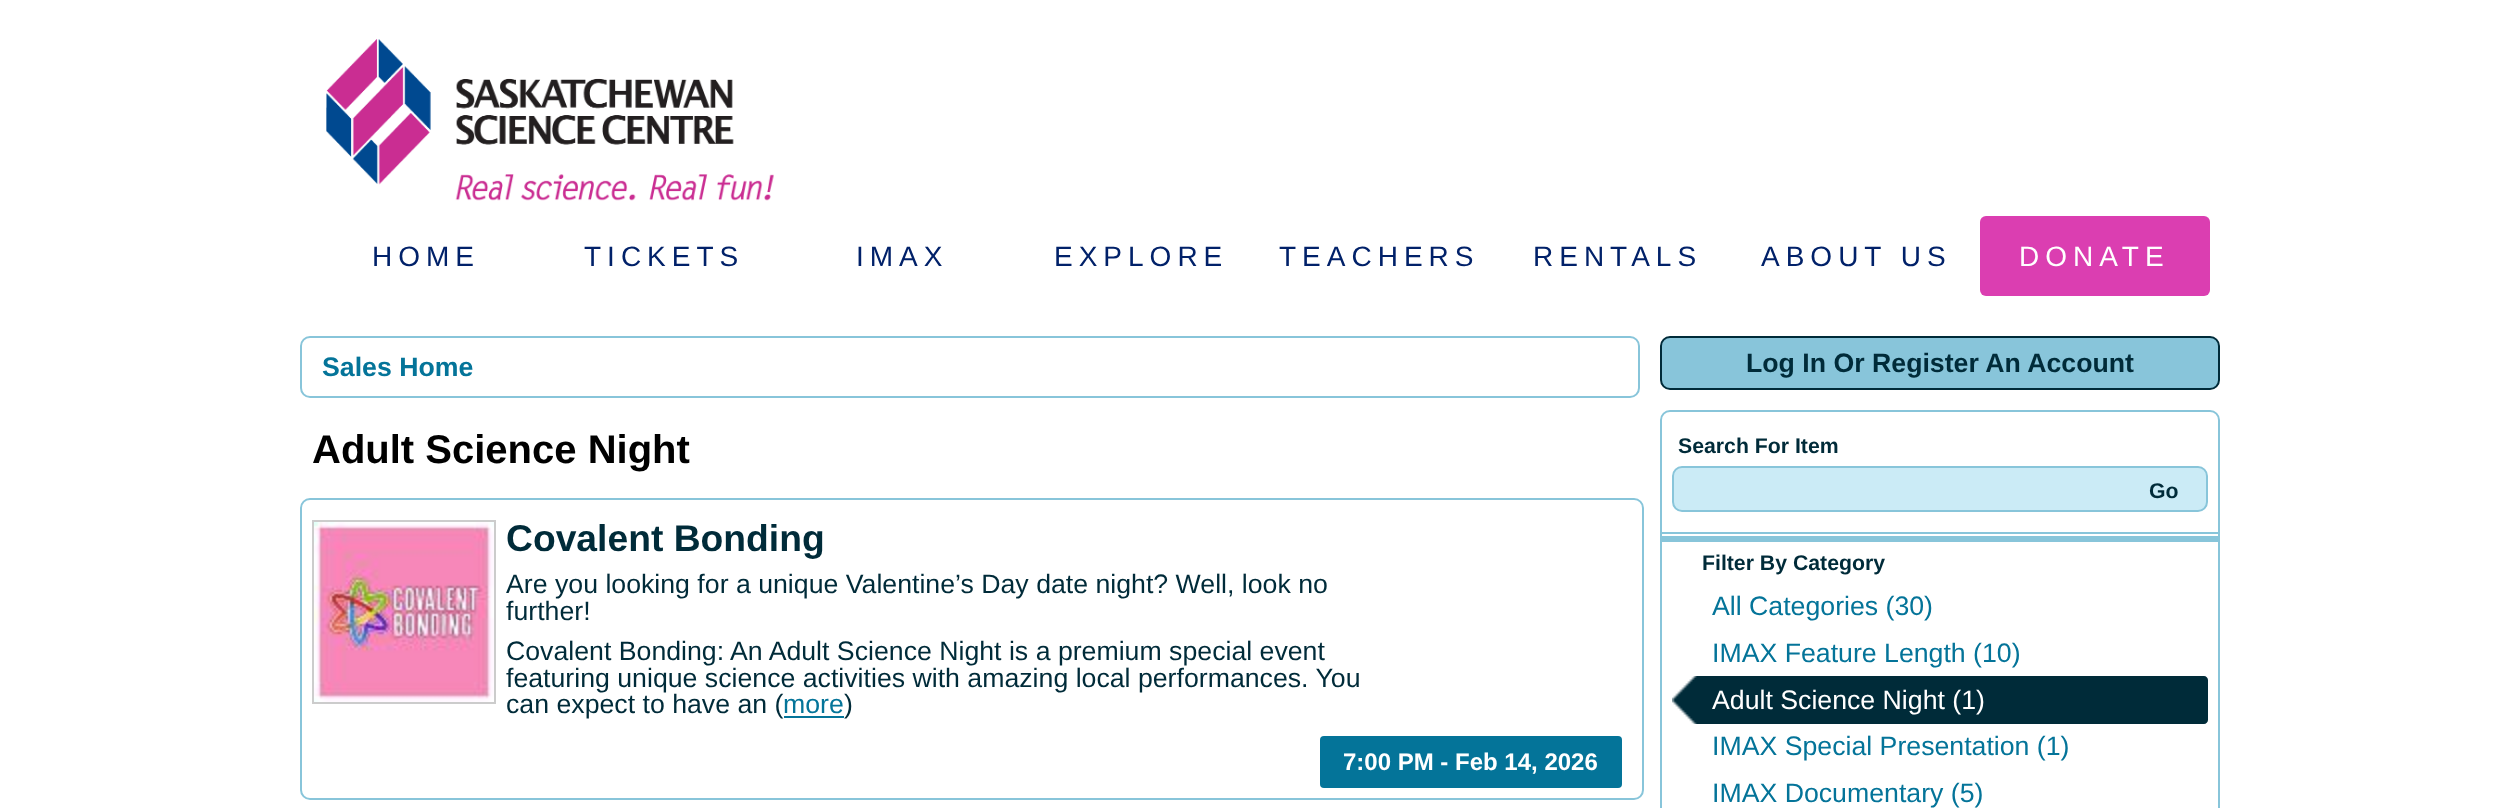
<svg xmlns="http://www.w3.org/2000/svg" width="2519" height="808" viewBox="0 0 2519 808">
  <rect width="100%" height="100%" fill="rgb(255,255,255)"/>
  <image x="326" y="39" width="448" height="162" href="pic1.png"/>
  <g font-family="Liberation Sans" font-size="28" letter-spacing="6" fill="rgb(1,33,105)">
    <text x="372" y="266">HOME</text>
    <text x="584" y="266">TICKETS</text>
    <text x="856" y="266">IMAX</text>
    <text x="1054" y="266">EXPLORE</text>
    <text x="1279" y="266">TEACHERS</text>
    <text x="1533" y="266">RENTALS</text>
    <text x="1761" y="266">ABOUT US</text>
  </g>
  <rect x="1980" y="216" width="230" height="80" rx="6" fill="rgb(219,62,177)"/>
  <text x="2019" y="266" font-family="Liberation Sans" font-size="28" letter-spacing="6" fill="rgb(255,255,255)">DONATE</text>
  <rect x="301" y="337" width="1338" height="60" rx="9" fill="none" stroke="rgb(136,197,218)" stroke-width="2"/>
  <text x="322" y="376" font-family="Liberation Sans" font-size="26.7" font-weight="bold" fill="rgb(4,116,153)">Sales Home</text>
  <text x="312" y="463" font-family="Liberation Sans" font-size="40" font-weight="bold" fill="rgb(0,0,0)">Adult Science Night</text>
  <rect x="301" y="499" width="1342" height="300" rx="9" fill="none" stroke="rgb(136,197,218)" stroke-width="2"/>
  <rect x="313" y="521" width="182" height="182" fill="none" stroke="rgb(204,204,204)" stroke-width="2"/>
  <image x="314" y="522" width="180" height="180" href="pic2.png"/>
  <text x="506" y="551" font-family="Liberation Sans" font-size="37.25" font-weight="bold" fill="rgb(0,43,57)">Covalent Bonding</text>
  <g font-family="Liberation Sans" font-size="26.7" fill="rgb(0,43,57)">
    <text>
      <tspan x="506" y="593">Are you looking for a unique Valentine’s Day date night? Well, look no</tspan>
      <tspan x="506" y="620">further!</tspan>
      <tspan x="506" y="660">Covalent Bonding: An Adult Science Night is a premium special event</tspan>
      <tspan x="506" y="687">featuring unique science activities with amazing local performances. You</tspan>
      <tspan x="506" y="713">can expect to have an (</tspan>
    </text>
  </g>
  <text x="783" y="713" font-family="Liberation Sans" font-size="26.7" fill="rgb(4,116,153)">more</text>
  <rect x="784" y="716" width="60" height="2" fill="rgb(4,116,153)"/>
  <text x="844" y="713" font-family="Liberation Sans" font-size="26.7" fill="rgb(0,43,57)">)</text>
  <rect x="1320" y="736" width="302" height="52" rx="4" fill="rgb(4,116,153)"/>
  <text x="1343" y="770" font-family="Liberation Sans" font-size="24" font-weight="bold" fill="rgb(255,255,255)">7:00 PM - Feb 14, 2026</text>
  <rect x="1661" y="337" width="558" height="52" rx="9" fill="rgb(136,197,218)" stroke="rgb(0,43,57)" stroke-width="2"/>
  <text x="1746" y="372" font-family="Liberation Sans" font-size="26.7" font-weight="bold" fill="rgb(0,43,57)">Log In Or Register An Account</text>
  <rect x="1661" y="411" width="558" height="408" rx="9" fill="none" stroke="rgb(136,197,218)" stroke-width="2"/>
  <text x="1678" y="453" font-family="Liberation Sans" font-size="21.25" font-weight="bold" fill="rgb(0,43,57)">Search For Item</text>
  <rect x="1673" y="467" width="534" height="44" rx="9" fill="rgb(203,235,246)" stroke="rgb(136,197,218)" stroke-width="2"/>
  <text x="2149" y="498" font-family="Liberation Sans" font-size="21.25" font-weight="bold" fill="rgb(0,43,57)">Go</text>
  <rect x="1662" y="532" width="556" height="2" fill="rgb(136,197,218)"/>
  <rect x="1662" y="536" width="556" height="6" fill="rgb(136,197,218)"/>
  <text x="1702" y="570" font-family="Liberation Sans" font-size="21.25" font-weight="bold" fill="rgb(0,43,57)">Filter By Category</text>
  <g font-family="Liberation Sans" font-size="26.7" fill="rgb(4,116,153)">
    <text>
      <tspan x="1712" y="615">All Categories (30)</tspan>
      <tspan x="1712" y="662">IMAX Feature Length (10)</tspan>
    </text>
  </g>
  <path d="M1672 676H2204C2206 676 2208 678 2208 680V720C2208 722 2206 724 2204 724H1672Z" fill="rgb(0,43,57)"/>
  <image x="1672" y="676" width="25" height="48" href="pic3.png"/>
  <text x="1712" y="709" font-family="Liberation Sans" font-size="26.7" fill="rgb(255,255,255)">Adult Science Night (1)</text>
  <g font-family="Liberation Sans" font-size="26.7" fill="rgb(4,116,153)">
    <text>
      <tspan x="1712" y="755">IMAX Special Presentation (1)</tspan>
      <tspan x="1712" y="802">IMAX Documentary (5)</tspan>
    </text>
  </g>
</svg>
